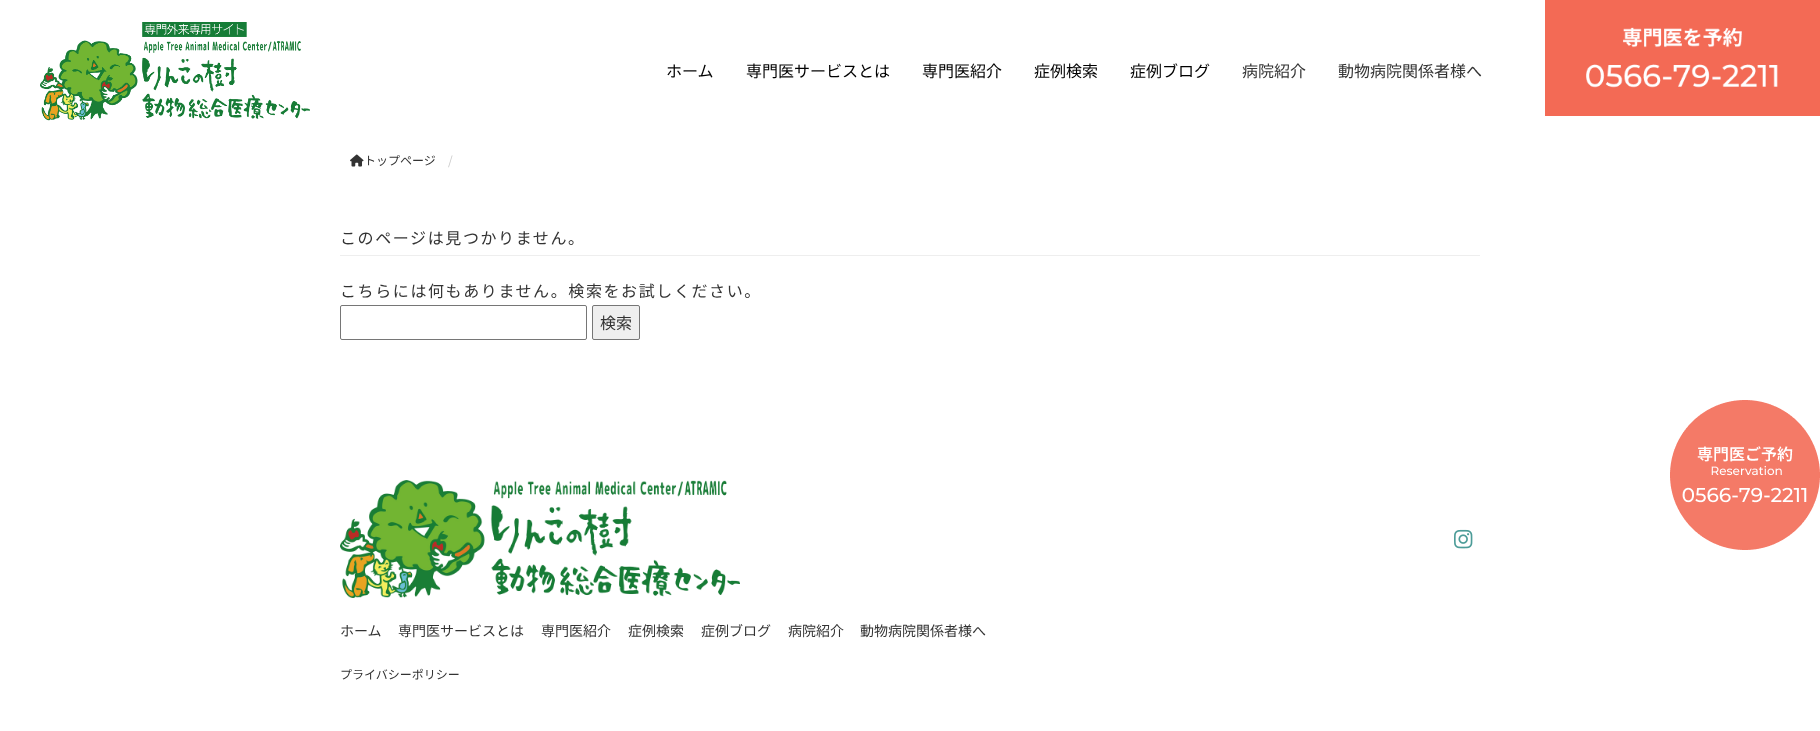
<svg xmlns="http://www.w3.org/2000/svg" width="1820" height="731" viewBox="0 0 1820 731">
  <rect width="100%" height="100%" fill="rgb(255,255,255)"/>
  <image x="40" y="22" width="270" height="99" href="pic1.png"/>
  <g font-family="Noto Sans JP" font-size="16" font-weight="100" fill="rgb(0,0,0)">
    <text x="666" y="77">ホーム</text>
    <text x="746" y="77">専門医サービスとは</text>
    <text x="922" y="77">専門医紹介</text>
    <text x="1034" y="77">症例検索</text>
    <text x="1130" y="77">症例ブログ</text>
  </g>
  <g font-family="Noto Sans JP" font-size="16" font-weight="100" fill="rgb(51,51,51)">
    <text x="1242" y="77">病院紹介</text>
    <text x="1338" y="77">動物病院関係者様へ</text>
  </g>
  <image x="1545" y="0" width="275" height="116" href="pic2.png"/>
  <image x="350" y="154" width="14" height="13" href="pic3.png"/>
  <text x="364" y="165" font-family="Noto Sans JP" font-size="12" font-weight="100" fill="rgb(51,51,51)">トップページ</text>
  <text x="448" y="165" font-family="Noto Sans JP" font-size="12" font-weight="100" fill="rgb(204,204,204)">/</text>
  <rect x="340" y="255" width="1140" height="1" fill="rgb(238,238,238)"/>
  <g font-family="Noto Sans JP" font-size="16" font-weight="100" letter-spacing="1.6" fill="rgb(51,51,51)">
    <text x="340" y="244">このページは見つかりません。</text>
    <text x="340" y="297">こちらには何もありません。検索をお試しください。</text>
  </g>
  <rect x="340.5" y="305.5" width="246" height="34" rx="1.5" fill="none" stroke="rgb(118,118,118)"/>
  <rect x="592.5" y="305.5" width="47" height="34" rx="1.5" fill="rgb(239,239,239)" stroke="rgb(118,118,118)"/>
  <text x="600" y="329" font-family="Noto Sans JP" font-size="16" font-weight="100" fill="rgb(51,51,51)">検索</text>
  <image x="1670" y="400" width="150" height="150" href="pic4.png"/>
  <image x="340" y="480" width="400" height="118" href="pic5.png"/>
  <image x="1454" y="529" width="19" height="20" href="pic6.png"/>
  <g font-family="Noto Sans JP" font-size="14" font-weight="100" fill="rgb(51,51,51)">
    <text x="340" y="636">ホーム</text>
    <text x="398" y="636">専門医サービスとは</text>
    <text x="541" y="636">専門医紹介</text>
    <text x="628" y="636">症例検索</text>
    <text x="701" y="636">症例ブログ</text>
    <text x="788" y="636">病院紹介</text>
    <text x="860" y="636">動物病院関係者様へ</text>
  </g>
  <text x="340" y="679" font-family="Noto Sans JP" font-size="12" font-weight="100" fill="rgb(51,51,51)">プライバシーポリシー</text>
</svg>
